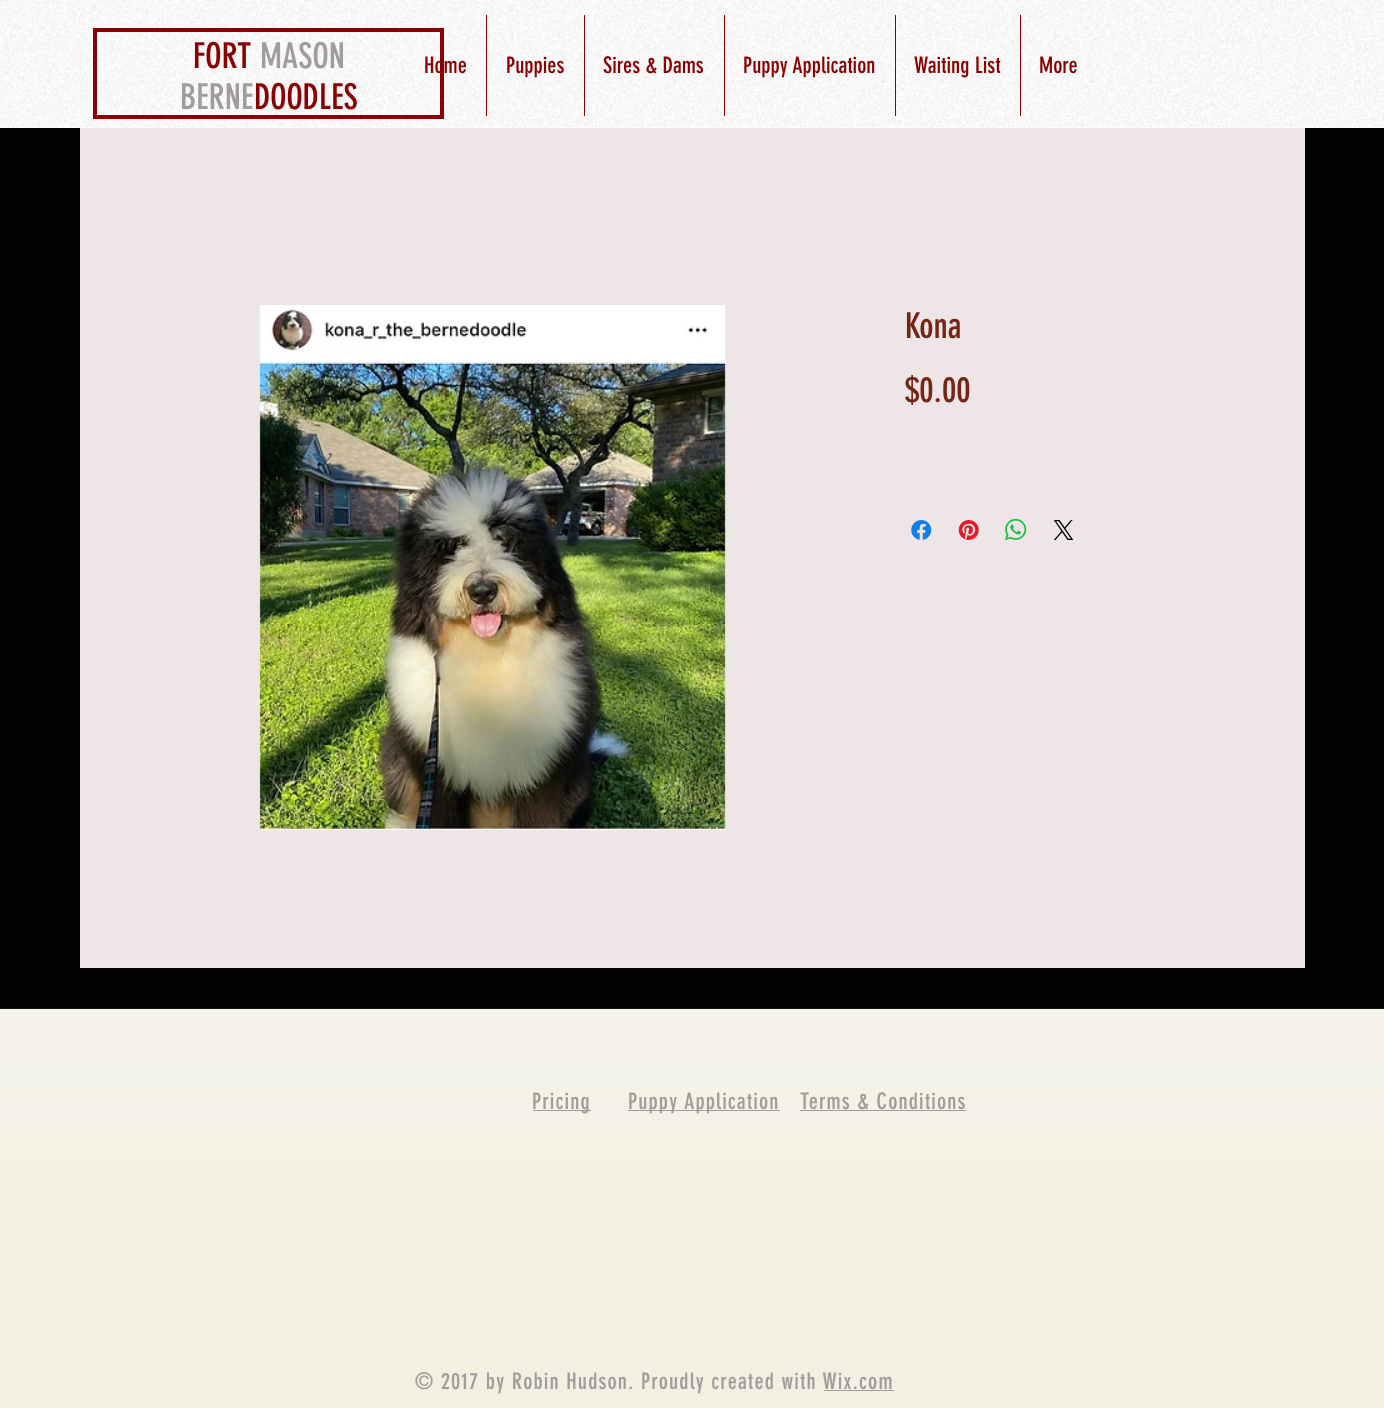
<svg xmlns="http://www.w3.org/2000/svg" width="1384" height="1408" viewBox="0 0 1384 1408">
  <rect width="100%" height="100%" fill="rgb(2,2,2)"/>
  <rect x="0" y="0" width="1384" height="128" fill="rgb(255,255,255)"/>
  <image x="0" y="0" width="1384" height="128" href="pic1.png"/>
  <rect x="95" y="30" width="347" height="87" fill="none" stroke="rgb(139,0,0)" stroke-width="4"/>
  <text x="193" y="68" font-family="'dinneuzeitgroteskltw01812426'" font-size="35" fill="rgb(139,0,0)">FORT</text>
  <g font-family="'dinneuzeitgroteskltw01812426'" font-size="35" fill="rgb(162,156,156)">
    <text x="260" y="68">MASON</text>
    <text x="180" y="109">BERNE</text>
  </g>
  <text x="254" y="109" font-family="'dinneuzeitgroteskltw01812426'" font-size="35" fill="rgb(139,0,0)">DOODLES</text>
  <text x="424" y="73" font-family="'dinneuzeitgroteskltw01812426'" font-size="22.5" fill="rgb(139,0,0)">Home</text>
  <rect x="486" y="15" width="1" height="101" fill="rgb(139,0,0)"/>
  <text x="506" y="73" font-family="'dinneuzeitgroteskltw01812426'" font-size="22.5" fill="rgb(139,0,0)">Puppies</text>
  <rect x="584" y="15" width="1" height="101" fill="rgb(139,0,0)"/>
  <text x="603" y="73" font-family="'dinneuzeitgroteskltw01812426'" font-size="22.5" fill="rgb(139,0,0)">Sires &amp; Dams</text>
  <rect x="724" y="15" width="1" height="101" fill="rgb(139,0,0)"/>
  <text x="743" y="73" font-family="'dinneuzeitgroteskltw01812426'" font-size="22.5" fill="rgb(139,0,0)">Puppy Application</text>
  <rect x="895" y="15" width="1" height="101" fill="rgb(139,0,0)"/>
  <text x="914" y="73" font-family="'dinneuzeitgroteskltw01812426'" font-size="22.5" fill="rgb(139,0,0)">Waiting List</text>
  <rect x="1020" y="15" width="1" height="101" fill="rgb(139,0,0)"/>
  <text x="1039" y="73" font-family="'dinneuzeitgroteskltw01812426'" font-size="22.5" fill="rgb(139,0,0)">More</text>
  <rect x="80" y="128" width="1225" height="840" fill="rgb(238,230,230)"/>
  <image x="259" y="305" width="467" height="525" href="pic2.png"/>
  <g font-family="'dinneuzeitgroteskltw01812426'" font-size="35" fill="rgb(117,37,21)">
    <text>
      <tspan x="905" y="338">Kona</tspan>
      <tspan x="905" y="402">$0.00</tspan>
    </text>
  </g>
  <image x="911" y="520" width="21" height="20" href="pic3.png"/>
  <image x="958" y="520" width="21" height="20" href="pic4.png"/>
  <image x="1005" y="518" width="22" height="23" href="pic5.png"/>
  <image x="1053" y="520" width="21" height="20" href="pic6.png"/>
  <rect x="0" y="1009" width="1384" height="399" fill="rgb(242,240,225)"/>
  <image x="0" y="1008" width="1384" height="153" href="pic7.png"/>
  <rect x="533" y="1110" width="58" height="1" fill="rgb(162,156,156)"/>
  <text x="532" y="1109" font-family="'dinneuzeitgroteskltw01812426'" font-size="22.5" letter-spacing="1.12" fill="rgb(162,156,156)">Pricing</text>
  <rect x="628" y="1110" width="152" height="1" fill="rgb(162,156,156)"/>
  <g font-family="'dinneuzeitgroteskltw01812426'" font-size="22.5" letter-spacing="1.12" fill="rgb(162,156,156)">
    <text x="628" y="1109">Puppy Application</text>
    <text x="800" y="1109">Terms &amp; Conditions</text>
  </g>
  <rect x="800" y="1110" width="166" height="1" fill="rgb(162,156,156)"/>
  <text x="415" y="1389" font-family="'dinneuzeitgroteskltw01812426'" font-size="22.5" letter-spacing="1.12" fill="rgb(162,156,156)">© 2017 by Robin Hudson. Proudly created with Wix.com</text>
  <rect x="824" y="1390" width="70" height="1" fill="rgb(162,156,156)"/>
</svg>
